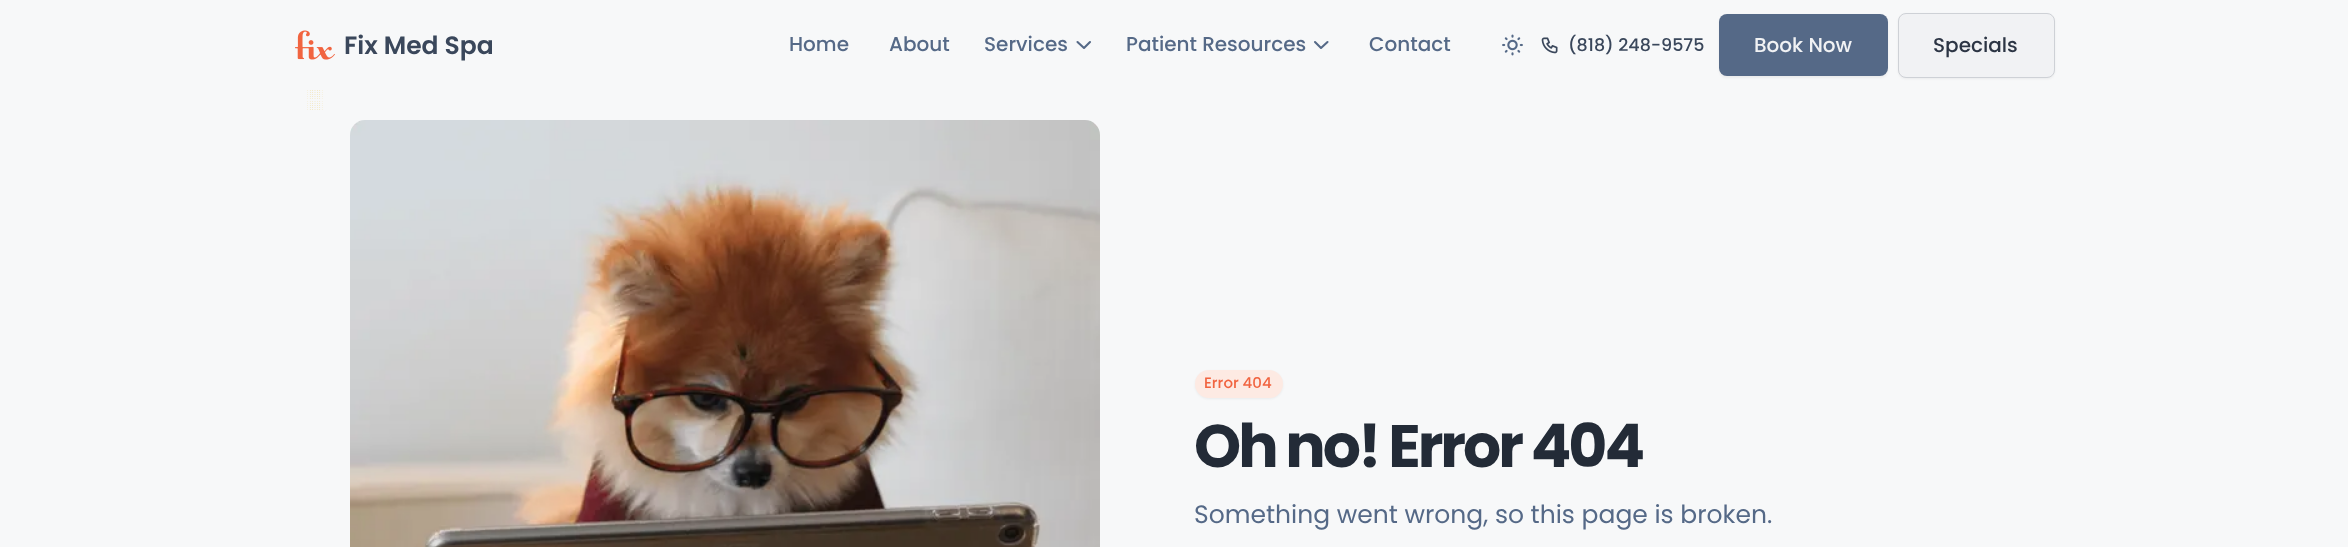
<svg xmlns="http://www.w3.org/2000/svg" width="2348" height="547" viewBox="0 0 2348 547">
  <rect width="100%" height="100%" fill="rgb(247,248,249)"/>
  <image x="295" y="30" width="40" height="30" href="pic1.png"/>
  <text x="344" y="54" font-family="Poppins" font-size="25" font-weight="600" fill="rgb(58,71,91)">Fix Med Spa</text>
  <g font-family="Poppins" font-size="20" font-weight="500" fill="rgb(85,105,135)">
    <text x="789" y="51">Home</text>
    <text x="889" y="51">About</text>
    <text x="984" y="51">Services</text>
  </g>
  <path d="M1077.5 42L1084 48L1090 42" fill="none" stroke="rgb(85,105,135)" stroke-width="2.1" stroke-linecap="round" stroke-linejoin="round"/>
  <text x="1126" y="51" font-family="Poppins" font-size="20" font-weight="500" fill="rgb(85,105,135)">Patient Resources</text>
  <path d="M1315 42L1321 48L1327.5 42" fill="none" stroke="rgb(85,105,135)" stroke-width="2.1" stroke-linecap="round" stroke-linejoin="round"/>
  <text x="1369" y="51" font-family="Poppins" font-size="20" font-weight="500" fill="rgb(85,105,135)">Contact</text>
  <image x="1502" y="34" width="21" height="22" href="pic2.png"/>
  <image x="1541" y="37" width="17" height="17" href="pic3.png"/>
  <text x="1568" y="51" font-family="Poppins" font-size="17.5" font-weight="500" fill="rgb(58,71,91)">(818) 248-9575</text>
  <rect x="1719" y="15" width="169" height="63" rx="8" fill="rgba(0,0,0,0.05)" filter="blur(1px)"/>
  <rect x="1719" y="14" width="169" height="62" rx="8" fill="rgb(85,105,135)"/>
  <text x="1754" y="52" font-family="Poppins" font-size="20" font-weight="500" fill="rgb(241,242,244)">Book Now</text>
  <rect x="1898" y="14" width="157" height="65" rx="8" fill="rgba(0,0,0,0.05)" filter="blur(1px)"/>
  <rect x="1898.5" y="13.5" width="156" height="64" rx="7.5" fill="rgb(241,242,244)" stroke="rgb(206,209,214)"/>
  <text x="1933" y="52" font-family="Poppins" font-size="20" font-weight="500" fill="rgb(44,53,68)">Specials</text>
  <image x="307" y="90" width="16" height="20" href="pic4.png"/>
  <image x="350" y="120" width="750" height="427" href="pic5.png"/>
  <rect x="1195" y="371" width="88" height="28" rx="14" fill="rgba(0,0,0,0.05)" filter="blur(1px)"/>
  <rect x="1195" y="370" width="88" height="28" rx="14" fill="rgb(253,234,227)"/>
  <text x="1204" y="388" font-family="Poppins" font-size="15" font-weight="500" fill="rgb(241,100,64)">Error 404</text>
  <text x="1194" y="467" font-family="Poppins" font-size="60" font-weight="bold" letter-spacing="-3" fill="rgb(35,43,55)">Oh no! Error 404</text>
  <text x="1194" y="523" font-family="Poppins" font-size="25" fill="rgb(85,105,135)">Something went wrong, so this page is broken.</text>
</svg>
